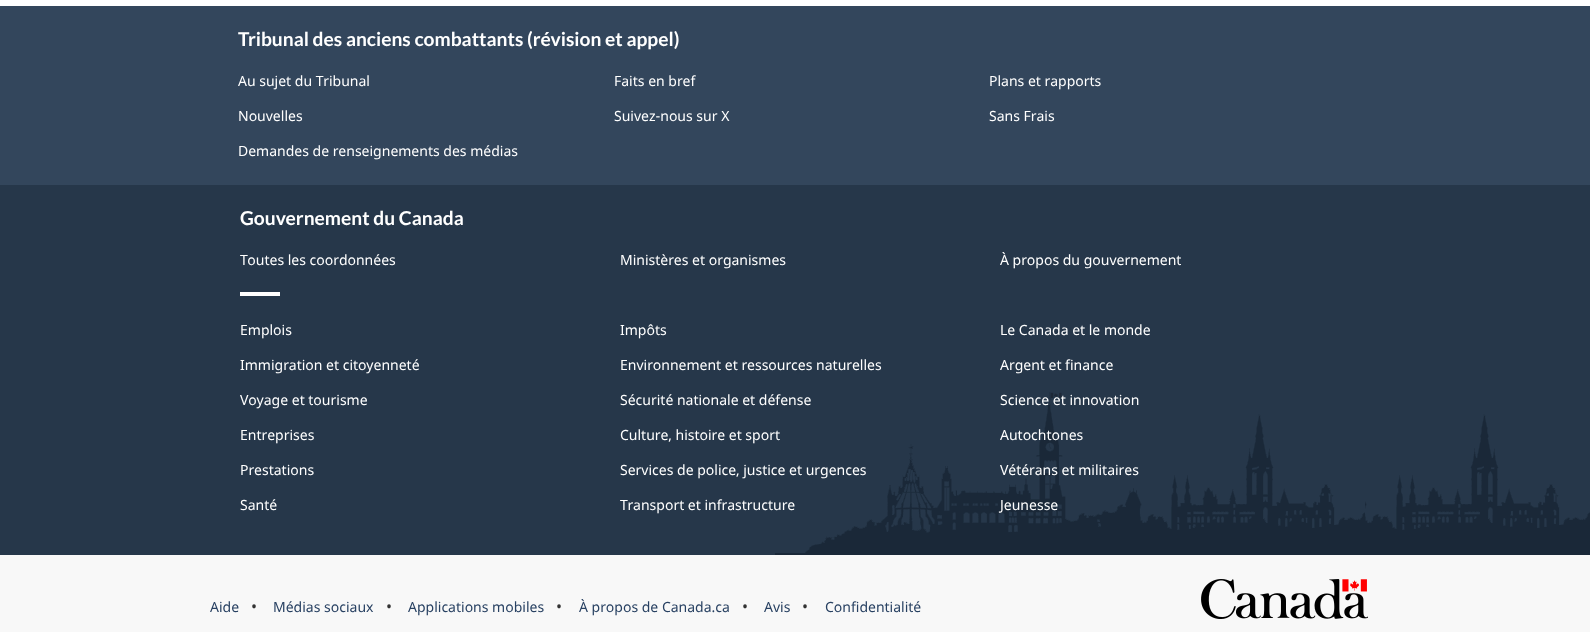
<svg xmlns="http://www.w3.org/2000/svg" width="1590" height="632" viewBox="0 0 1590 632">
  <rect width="100%" height="100%" fill="rgb(255,255,255)"/>
  <rect x="0" y="185" width="1590" height="370" fill="rgb(38,55,74)"/>
  <image x="1365" y="414" width="225" height="141" href="pic1.png"/>
  <rect x="0" y="6" width="1590" height="179" fill="rgb(51,70,92)"/>
  <text x="238" y="46" font-family="Lato" font-size="19.2" font-weight="bold" fill="rgb(255,255,255)">Tribunal des anciens combattants (révision et appel)</text>
  <g font-family="Noto Sans" font-size="14" fill="rgb(255,255,255)">
    <text x="238" y="86">Au sujet du Tribunal</text>
    <text x="614" y="86">Faits en bref</text>
    <text x="989" y="86">Plans et rapports</text>
    <text x="238" y="121">Nouvelles</text>
    <text x="614" y="121">Suivez-nous sur X</text>
    <text x="989" y="121">Sans Frais</text>
    <text x="238" y="156">Demandes de renseignements des médias</text>
  </g>
  <image x="775" y="392" width="590" height="163" href="pic2.png"/>
  <text x="240" y="225" font-family="Lato" font-size="19.2" font-weight="bold" fill="rgb(255,255,255)">Gouvernement du Canada</text>
  <g font-family="Noto Sans" font-size="14" fill="rgb(255,255,255)">
    <text x="240" y="265">Toutes les coordonnées</text>
    <text x="620" y="265">Ministères et organismes</text>
    <text x="1000" y="265">À propos du gouvernement</text>
  </g>
  <rect x="240" y="292" width="40" height="4" fill="rgb(255,255,255)"/>
  <g font-family="Noto Sans" font-size="14" fill="rgb(255,255,255)">
    <text x="240" y="335">Emplois</text>
    <text x="620" y="335">Impôts</text>
    <text x="1000" y="335">Le Canada et le monde</text>
    <text x="240" y="370">Immigration et citoyenneté</text>
    <text x="620" y="370">Environnement et ressources naturelles</text>
    <text x="1000" y="370">Argent et finance</text>
    <text x="240" y="405">Voyage et tourisme</text>
    <text x="620" y="405">Sécurité nationale et défense</text>
    <text x="1000" y="405">Science et innovation</text>
    <text x="240" y="440">Entreprises</text>
    <text x="620" y="440">Culture, histoire et sport</text>
    <text x="1000" y="440">Autochtones</text>
    <text x="240" y="475">Prestations</text>
    <text x="620" y="475">Services de police, justice et urgences</text>
    <text x="1000" y="475">Vétérans et militaires</text>
    <text x="240" y="510">Santé</text>
    <text x="620" y="510">Transport et infrastructure</text>
    <text x="1000" y="510">Jeunesse</text>
  </g>
  <rect x="0" y="555" width="1590" height="77" fill="rgb(248,248,248)"/>
  <text x="210" y="612" font-family="Noto Sans" font-size="14" fill="rgb(40,65,98)">Aide</text>
  <text x="251" y="612" font-family="Noto Sans" font-size="16" fill="rgb(51,51,51)">•</text>
  <text x="273" y="612" font-family="Noto Sans" font-size="14" fill="rgb(40,65,98)">Médias sociaux</text>
  <text x="386" y="612" font-family="Noto Sans" font-size="16" fill="rgb(51,51,51)">•</text>
  <text x="408" y="612" font-family="Noto Sans" font-size="14" fill="rgb(40,65,98)">Applications mobiles</text>
  <text x="556" y="612" font-family="Noto Sans" font-size="16" fill="rgb(51,51,51)">•</text>
  <text x="579" y="612" font-family="Noto Sans" font-size="14" fill="rgb(40,65,98)">À propos de Canada.ca</text>
  <text x="742" y="612" font-family="Noto Sans" font-size="16" fill="rgb(51,51,51)">•</text>
  <text x="764" y="612" font-family="Noto Sans" font-size="14" fill="rgb(40,65,98)">Avis</text>
  <text x="802" y="612" font-family="Noto Sans" font-size="16" fill="rgb(51,51,51)">•</text>
  <text x="825" y="612" font-family="Noto Sans" font-size="14" fill="rgb(40,65,98)">Confidentialité</text>
  <image x="1201" y="579" width="167" height="40" href="pic3.png"/>
</svg>
